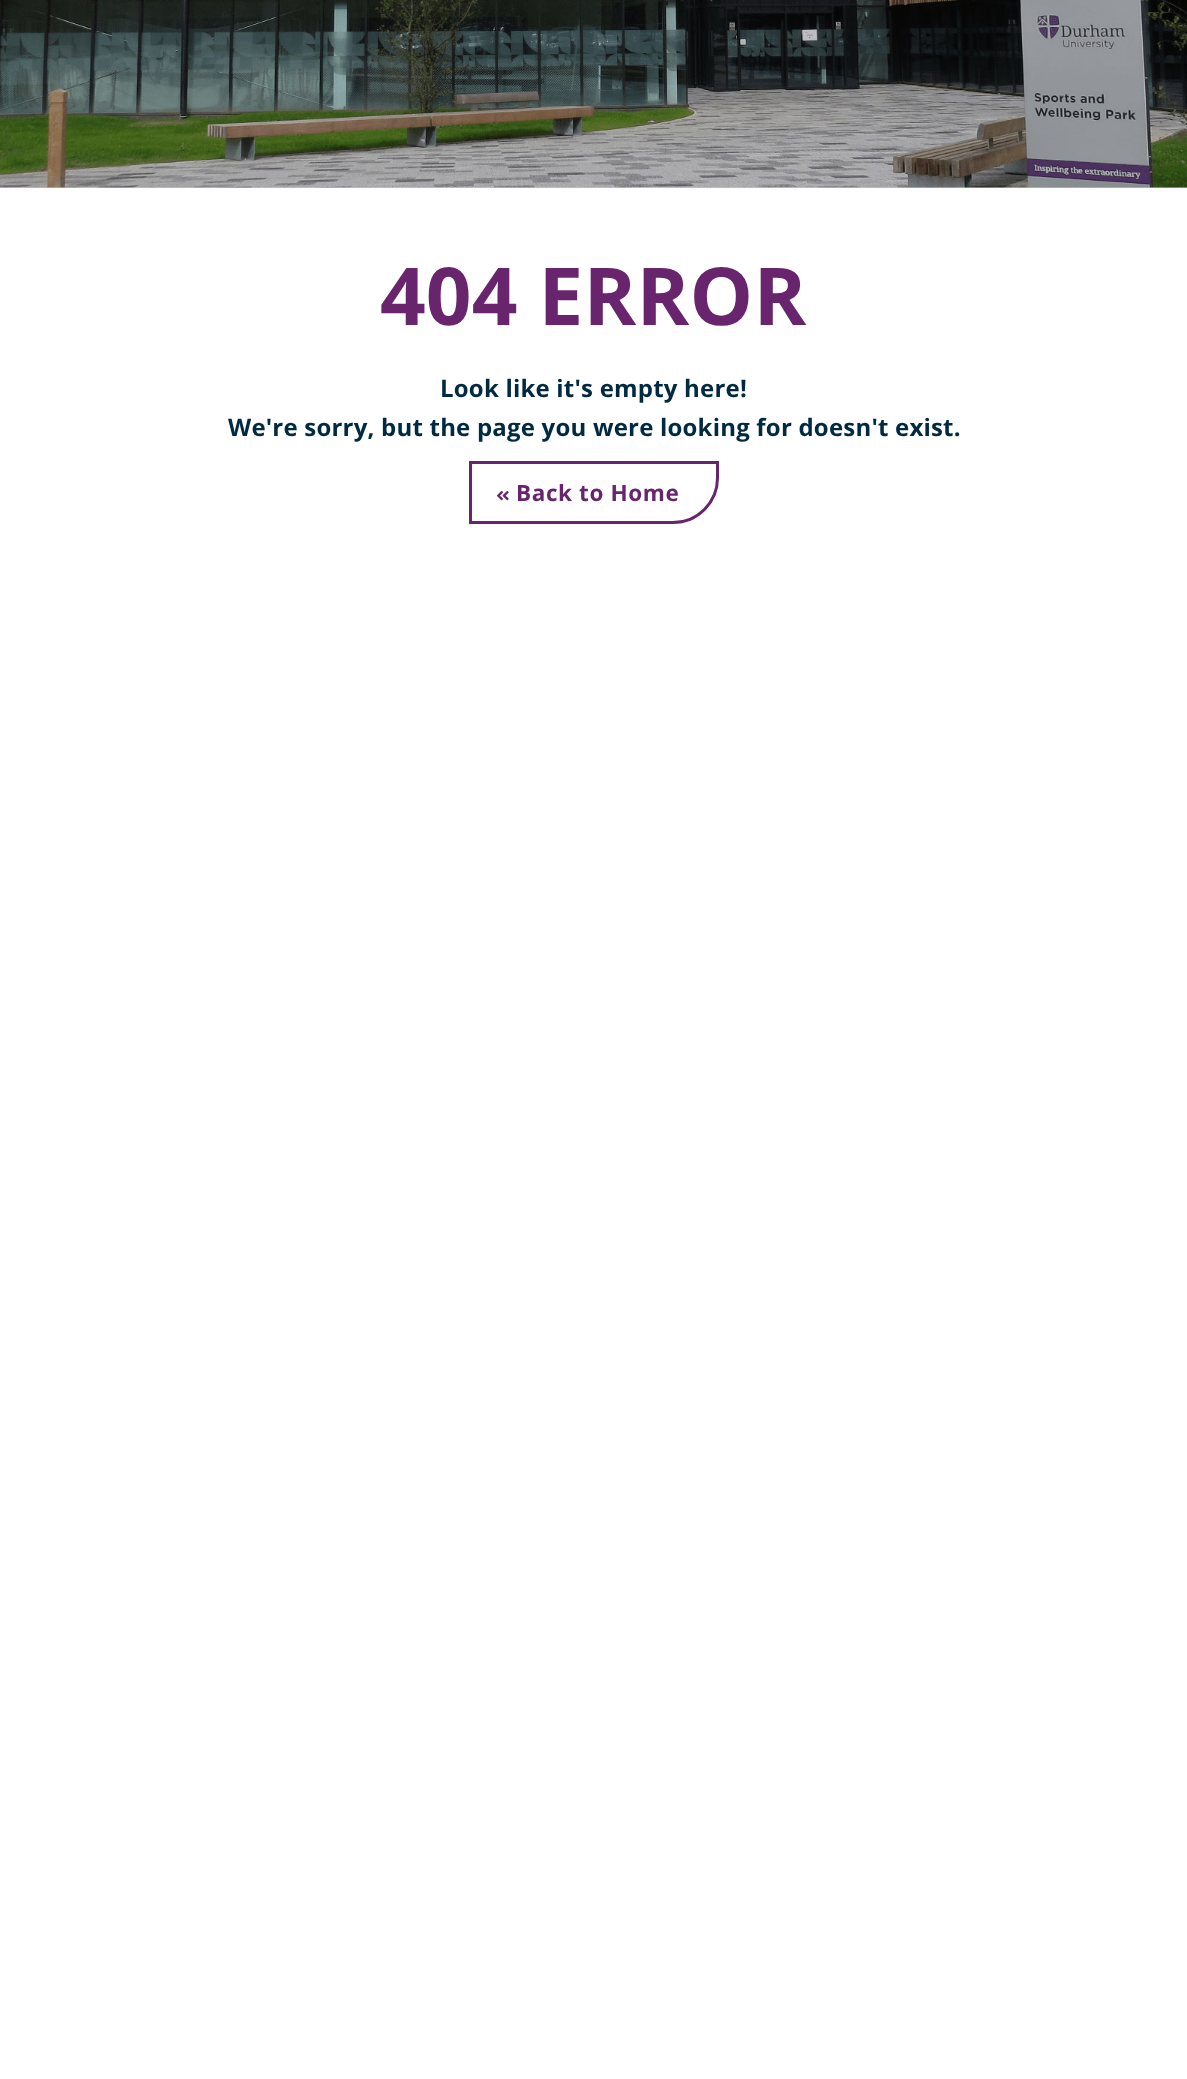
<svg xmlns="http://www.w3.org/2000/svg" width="1187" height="2079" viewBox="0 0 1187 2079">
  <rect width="100%" height="100%" fill="rgb(255,255,255)"/>
  <rect x="0" y="187" width="1187" height="1" fill="rgb(204,204,204)"/>
  <image x="0" y="0" width="1187" height="188" href="pic1.png"/>
  <text x="380" y="325" font-family="Open Sans" font-size="80" font-weight="bold" letter-spacing="0.2" fill="rgb(104,36,109)">404 ERROR</text>
  <g font-family="Open Sans" font-size="24" font-weight="bold" letter-spacing="0.2" fill="rgb(0,42,65)">
    <text x="440" y="397">Look like it's empty here!</text>
    <text x="228" y="436">We're sorry, but the page you were looking for doesn't exist.</text>
  </g>
  <path d="M470.5 462.5H717.5V478C717.5 502.5 697.5 522.5 673 522.5H470.5Z" fill="none" stroke="rgb(104,36,109)" stroke-width="3"/>
  <image x="497" y="491" width="12" height="10" href="pic2.png"/>
  <text x="516" y="501" font-family="Open Sans" font-size="22.5" font-weight="bold" letter-spacing="0.6" fill="rgb(104,36,109)">Back to Home</text>
</svg>
